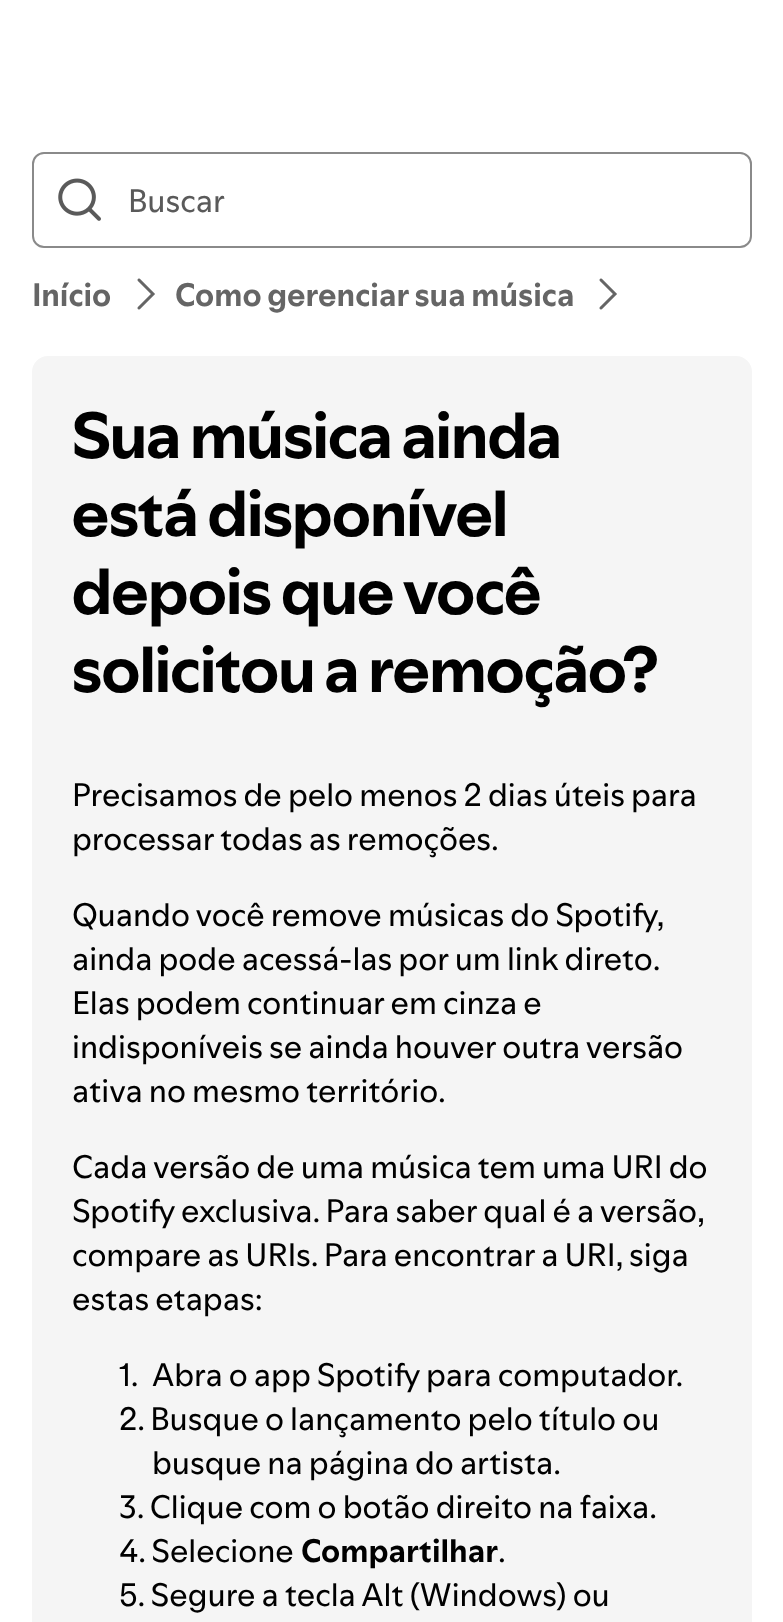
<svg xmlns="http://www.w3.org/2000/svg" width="783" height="1622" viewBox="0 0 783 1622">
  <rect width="100%" height="100%" fill="rgb(255,255,255)"/>
  <rect x="33" y="153" width="718" height="94" rx="11" fill="none" stroke="rgb(138,138,138)" stroke-width="2"/>
  <image x="58" y="178" width="43" height="43" href="pic1.png"/>
  <text x="128" y="212" font-family="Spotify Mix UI" font-size="32" fill="rgb(90,90,90)">Buscar</text>
  <text x="32" y="306" font-family="Spotify Mix UI" font-size="32" font-weight="bold" fill="rgb(101,101,101)">Início</text>
  <image x="137" y="278" width="18" height="32" href="pic2.png"/>
  <text x="175" y="306" font-family="Spotify Mix UI" font-size="32" font-weight="bold" fill="rgb(101,101,101)">Como gerenciar sua música</text>
  <image x="599" y="278" width="18" height="32" href="pic2.png"/>
  <rect x="32" y="356" width="720" height="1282" rx="16" fill="rgb(245,245,245)"/>
  <g font-family="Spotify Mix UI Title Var" font-size="64" font-weight="bold" fill="rgb(0,0,0)">
    <text>
      <tspan x="72" y="458">Sua música ainda</tspan>
      <tspan x="72" y="536">está disponível</tspan>
      <tspan x="72" y="614">depois que você</tspan>
      <tspan x="72" y="692">solicitou a remoção?</tspan>
    </text>
  </g>
  <g font-family="Spotify Mix UI" font-size="32" fill="rgb(0,0,0)">
    <text>
      <tspan x="72" y="806">Precisamos de pelo menos 2 dias úteis para</tspan>
      <tspan x="72" y="850">processar todas as remoções.</tspan>
    </text>
    <text>
      <tspan x="72" y="926">Quando você remove músicas do Spotify,</tspan>
      <tspan x="72" y="970">ainda pode acessá-las por um link direto.</tspan>
      <tspan x="72" y="1014">Elas podem continuar em cinza e</tspan>
      <tspan x="72" y="1058">indisponíveis se ainda houver outra versão</tspan>
      <tspan x="72" y="1102">ativa no mesmo território.</tspan>
    </text>
    <text>
      <tspan x="72" y="1178">Cada versão de uma música tem uma URI do</tspan>
      <tspan x="72" y="1222">Spotify exclusiva. Para saber qual é a versão,</tspan>
      <tspan x="72" y="1266">compare as URIs. Para encontrar a URI, siga</tspan>
      <tspan x="72" y="1310">estas etapas:</tspan>
    </text>
    <text x="119" y="1386">1.</text>
    <text x="152" y="1386">Abra o app Spotify para computador.</text>
    <text x="119" y="1430">2. Busque o lançamento pelo título ou</text>
    <text x="152" y="1474">busque na página do artista.</text>
    <text>
      <tspan x="119" y="1518">3. Clique com o botão direito na faixa.</tspan>
      <tspan x="119" y="1562">4. Selecione</tspan>
    </text>
  </g>
  <text x="301" y="1562" font-family="Spotify Mix UI" font-size="32" font-weight="bold" fill="rgb(0,0,0)">Compartilhar</text>
  <g font-family="Spotify Mix UI" font-size="32" fill="rgb(0,0,0)">
    <text x="498" y="1562">.</text>
    <text x="119" y="1606">5. Segure a tecla Alt (Windows) ou</text>
  </g>
</svg>
